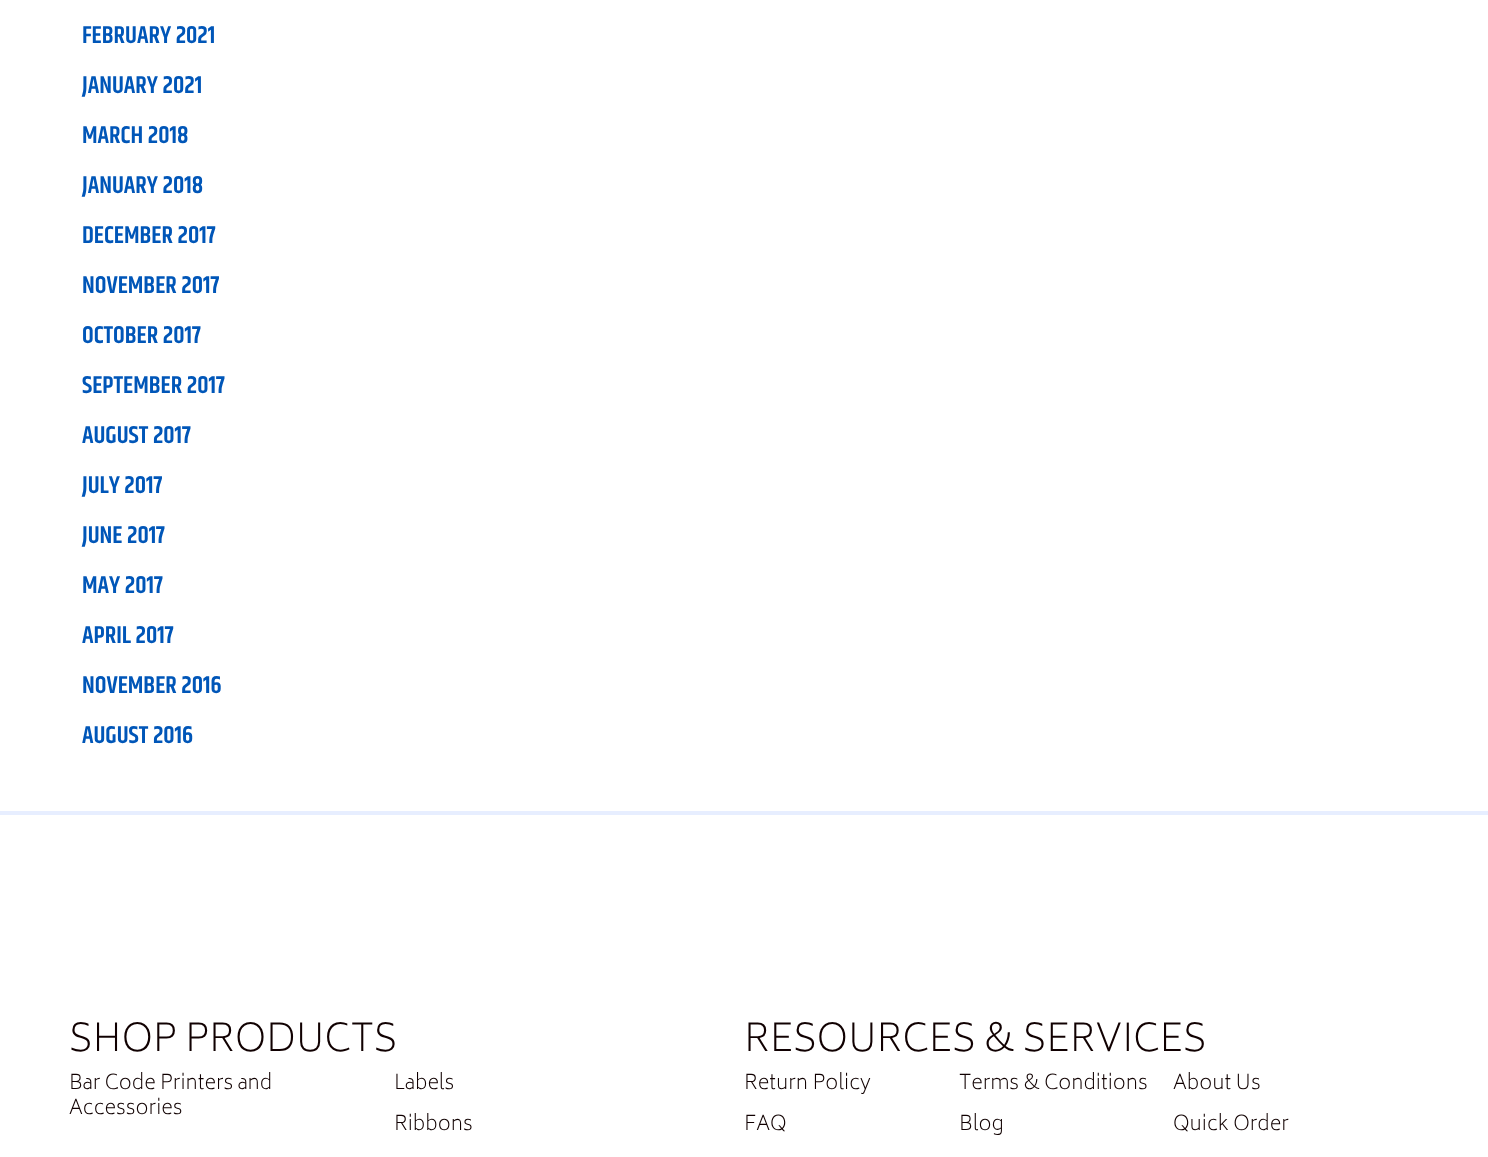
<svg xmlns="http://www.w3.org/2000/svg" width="1488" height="1157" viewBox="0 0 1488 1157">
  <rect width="100%" height="100%" fill="rgb(255,255,255)"/>
  <g font-family="Khand" font-size="24.5" font-weight="600" fill="rgb(0,86,184)">
    <text x="82" y="43">FEBRUARY 2021</text>
    <text x="82" y="93">JANUARY 2021</text>
    <text x="82" y="143">MARCH 2018</text>
    <text x="82" y="193">JANUARY 2018</text>
    <text x="82" y="243">DECEMBER 2017</text>
    <text x="82" y="293">NOVEMBER 2017</text>
    <text x="82" y="343">OCTOBER 2017</text>
    <text x="82" y="393">SEPTEMBER 2017</text>
    <text x="82" y="443">AUGUST 2017</text>
    <text x="82" y="493">JULY 2017</text>
    <text x="82" y="543">JUNE 2017</text>
    <text x="82" y="593">MAY 2017</text>
    <text x="82" y="643">APRIL 2017</text>
    <text x="82" y="693">NOVEMBER 2016</text>
    <text x="82" y="743">AUGUST 2016</text>
  </g>
  <rect x="0" y="811" width="1488" height="4" fill="rgb(231,238,255)"/>
  <text x="69" y="1051" font-family="Biryani" font-size="37.5" font-weight="200" fill="rgb(16,0,1)">SHOP PRODUCTS</text>
  <g font-family="Biryani" font-size="20" font-weight="200" fill="rgb(16,0,1)">
    <text>
      <tspan x="69" y="1089">Bar Code Printers and</tspan>
      <tspan x="69" y="1114">Accessories</tspan>
    </text>
    <text x="394" y="1089">Labels</text>
    <text x="394" y="1130">Ribbons</text>
  </g>
  <text x="744" y="1051" font-family="Biryani" font-size="37.5" font-weight="200" fill="rgb(16,0,1)">RESOURCES &amp; SERVICES</text>
  <g font-family="Biryani" font-size="20" font-weight="200" fill="rgb(16,0,1)">
    <text x="744" y="1089">Return Policy</text>
    <text x="959" y="1089">Terms &amp; Conditions</text>
    <text x="1173" y="1089">About Us</text>
    <text x="744" y="1130">FAQ</text>
    <text x="959" y="1130">Blog</text>
    <text x="1173" y="1130">Quick Order</text>
  </g>
</svg>
